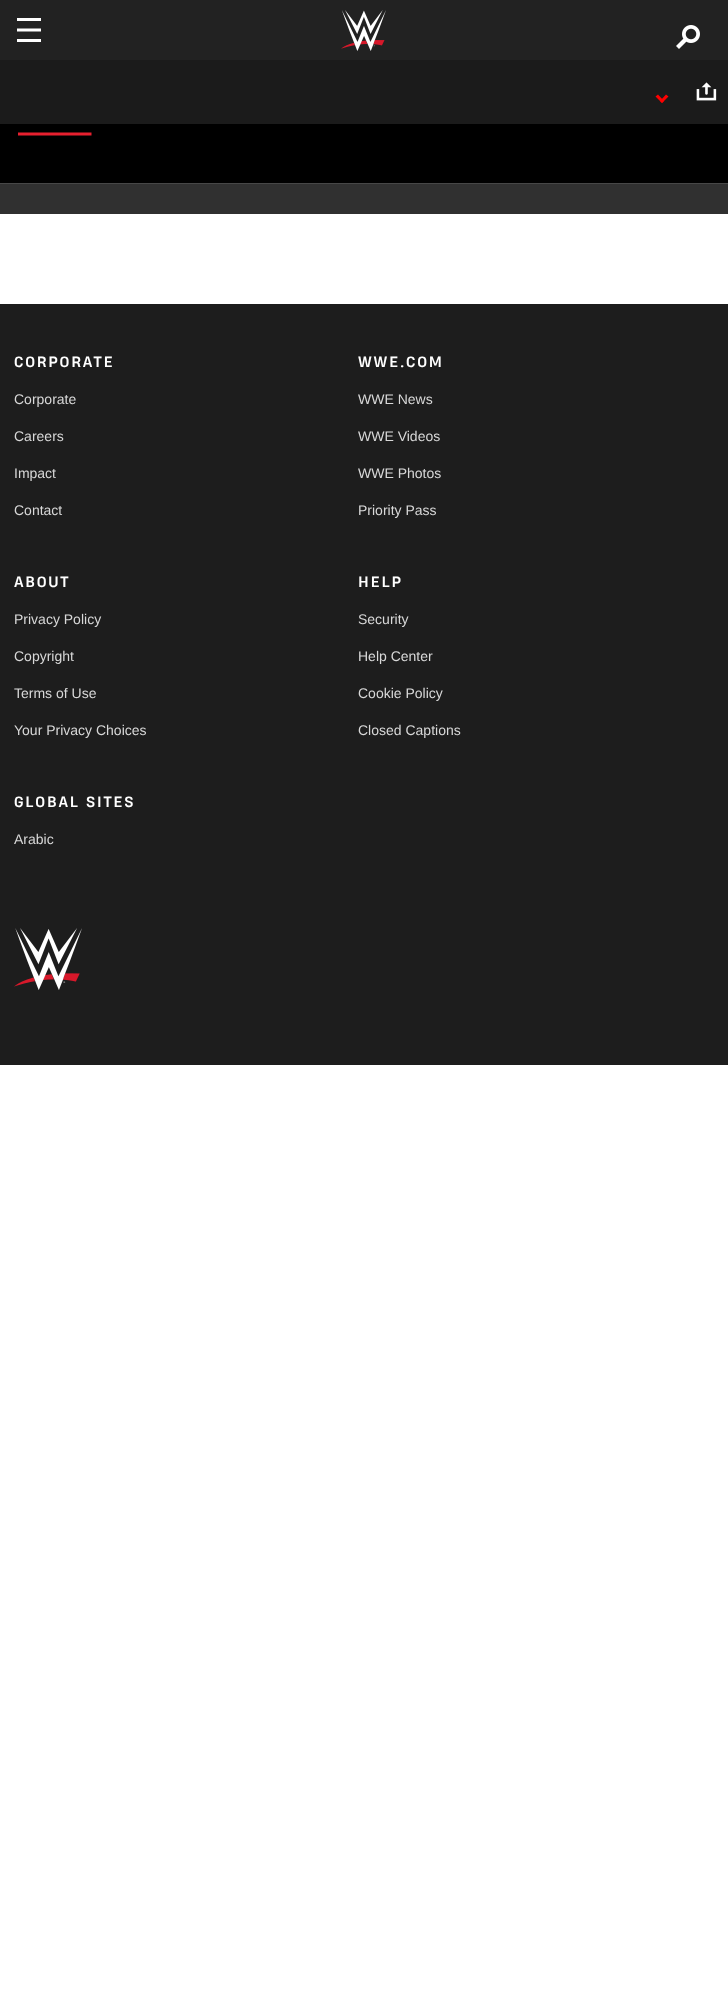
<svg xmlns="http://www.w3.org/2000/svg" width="728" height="1997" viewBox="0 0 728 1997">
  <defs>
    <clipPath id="clip1"><rect x="18" y="131" width="90" height="5"/></clipPath>
  </defs>
  <rect width="100%" height="100%" fill="rgb(255,255,255)"/>
  <rect x="0" y="0" width="728" height="60" fill="rgb(34,34,34)"/>
  <image x="17" y="18" width="24" height="24" href="pic1.png"/>
  <image x="341" y="10" width="45" height="41" href="pic2.png"/>
  <image x="676" y="25" width="24" height="24" href="pic3.png"/>
  <rect x="0" y="184" width="728" height="30" fill="rgb(48,48,48)"/>
  <rect x="0" y="60" width="728" height="64" fill="rgb(27,27,27)"/>
  <path d="M666 94.5L668.5 96.5L662 103L660 101Z" fill="rgb(255,0,0)"/>
  <path d="M658 94.5L664 101L662 103L655.5 96.5Z" fill="rgb(255,0,0)"/>
  <image x="696" y="82" width="21" height="19" href="pic4.png"/>
  <rect x="0" y="124" width="728" height="59" fill="rgb(0,0,0)"/>
  <rect x="0" y="183" width="728" height="1" fill="rgb(71,71,71)"/>
  <g clip-path="url(#clip1)">
    <path d="M1.5 134H91.5" fill="none" stroke="rgb(231,32,47)" stroke-width="3"/>
  </g>
  <rect x="0" y="304" width="728" height="761" fill="rgb(29,29,29)"/>
  <text x="14" y="367" font-family="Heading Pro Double" font-size="14" font-weight="bold" letter-spacing="1.75" fill="rgb(255,255,255)">CORPORATE</text>
  <g font-family="Liberation Sans" font-size="14" fill="rgb(216,216,216)">
    <text x="14" y="404">Corporate</text>
    <text x="14" y="441">Careers</text>
    <text x="14" y="478">Impact</text>
    <text x="14" y="515">Contact</text>
  </g>
  <text x="358" y="367" font-family="Heading Pro Double" font-size="14" font-weight="bold" letter-spacing="1.75" fill="rgb(255,255,255)">WWE.COM</text>
  <g font-family="Liberation Sans" font-size="14" fill="rgb(216,216,216)">
    <text x="358" y="404">WWE News</text>
    <text x="358" y="441">WWE Videos</text>
    <text x="358" y="478">WWE Photos</text>
    <text x="358" y="515">Priority Pass</text>
  </g>
  <text x="14" y="587" font-family="Heading Pro Double" font-size="14" font-weight="bold" letter-spacing="1.75" fill="rgb(255,255,255)">ABOUT</text>
  <g font-family="Liberation Sans" font-size="14" fill="rgb(216,216,216)">
    <text x="14" y="624">Privacy Policy</text>
    <text x="14" y="661">Copyright</text>
    <text x="14" y="698">Terms of Use</text>
    <text x="14" y="735">Your Privacy Choices</text>
  </g>
  <text x="358" y="587" font-family="Heading Pro Double" font-size="14" font-weight="bold" letter-spacing="1.75" fill="rgb(255,255,255)">HELP</text>
  <g font-family="Liberation Sans" font-size="14" fill="rgb(216,216,216)">
    <text x="358" y="624">Security</text>
    <text x="358" y="661">Help Center</text>
    <text x="358" y="698">Cookie Policy</text>
    <text x="358" y="735">Closed Captions</text>
  </g>
  <text x="14" y="807" font-family="Heading Pro Double" font-size="14" font-weight="bold" letter-spacing="1.75" fill="rgb(255,255,255)">GLOBAL SITES</text>
  <text x="14" y="844" font-family="Liberation Sans" font-size="14" fill="rgb(216,216,216)">Arabic</text>
  <image x="14" y="928" width="68" height="62" href="pic5.png"/>
</svg>
